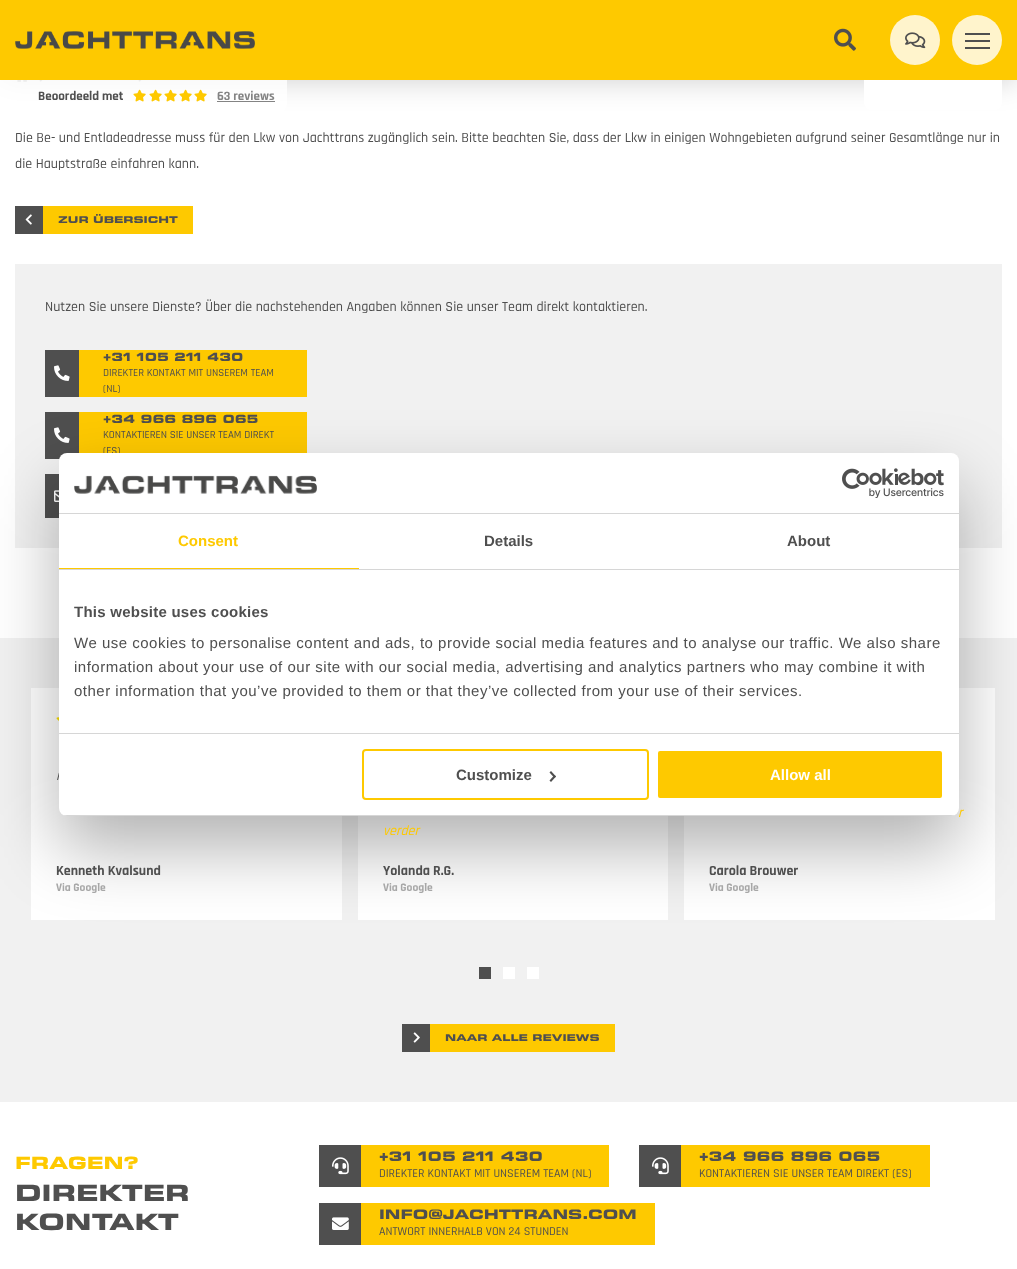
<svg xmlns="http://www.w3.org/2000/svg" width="1017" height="1269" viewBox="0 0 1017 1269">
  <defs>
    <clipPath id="clip1"><rect x="59" y="453" width="900" height="363" rx="8"/></clipPath>
  </defs>
  <rect width="100%" height="100%" fill="rgb(241,241,241)"/>
  <rect x="0" y="80" width="1017" height="558" fill="rgb(255,255,255)"/>
  <image x="17" y="80" width="10" height="2" href="pic5.png"/>
  <image x="39" y="80" width="4" height="2" href="pic6.png"/>
  <image x="138" y="80" width="4" height="2" href="pic6.png"/>
  <rect x="0" y="0" width="1017" height="80" fill="rgba(0,0,0,0.2)" filter="blur(15px)"/>
  <rect x="0" y="0" width="1017" height="80" fill="rgb(254,201,0)"/>
  <image x="15" y="31" width="240" height="18" href="pic1.png"/>
  <image x="834" y="28" width="22" height="23" href="pic2.png"/>
  <circle cx="915" cy="40" r="25" fill="rgb(255,244,204)"/>
  <image x="905" y="32" width="21" height="17" href="pic3.png"/>
  <circle cx="977" cy="40" r="25" fill="rgb(255,244,204)"/>
  <rect x="965" y="47" width="25" height="2" fill="rgb(79,79,79)"/>
  <rect x="965" y="40" width="25" height="2" fill="rgb(79,79,79)"/>
  <rect x="965" y="33" width="25" height="2" fill="rgb(79,79,79)"/>
  <path d="M864 80H1002V102C1002 106.5 998.5 110 994 110H872C867.5 110 864 106.5 864 102Z" fill="rgb(255,255,255)"/>
  <path d="M0 80H287V104C287 108.5 283.5 112 279 112H0Z" fill="rgba(255,255,255,0.8)"/>
  <text x="38" y="100" font-family="Rajdhani" font-size="13" font-weight="bold" fill="rgb(79,79,79)">Beoordeeld met</text>
  <image x="133" y="89" width="13" height="13" href="pic4.png"/>
  <image x="149" y="89" width="13" height="13" href="pic4.png"/>
  <image x="164" y="89" width="13" height="13" href="pic4.png"/>
  <image x="179" y="89" width="13" height="13" href="pic4.png"/>
  <image x="194" y="89" width="13" height="13" href="pic4.png"/>
  <text x="217" y="100" font-family="Rajdhani" font-size="13" font-weight="bold" fill="rgb(131,131,131)">63 reviews</text>
  <rect x="217" y="101" width="58" height="1" fill="rgb(132,132,132)"/>
  <g font-family="Rajdhani" font-size="14" font-weight="500" fill="rgb(79,79,79)">
    <text>
      <tspan x="15" y="142">Die Be- und Entladeadresse muss für den Lkw von Jachttrans zugänglich sein. Bitte beachten Sie, dass der Lkw in einigen Wohngebieten aufgrund seiner Gesamtlänge nur in</tspan>
      <tspan x="15" y="168">die Hauptstraße einfahren kann.</tspan>
    </text>
  </g>
  <rect x="43" y="206" width="150" height="28" fill="rgb(254,201,0)"/>
  <rect x="15" y="206" width="28" height="28" fill="rgb(79,79,79)"/>
  <image x="25" y="214" width="7" height="11" href="pic7.png"/>
  <text x="58" y="223" font-family="'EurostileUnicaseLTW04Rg'" font-size="10" font-weight="bold" fill="rgb(79,79,79)">ZUR ÜBERSICHT</text>
  <rect x="15" y="264" width="987" height="284" fill="rgb(241,241,241)"/>
  <text x="45" y="311" font-family="Rajdhani" font-size="14" font-weight="500" fill="rgb(79,79,79)">Nutzen Sie unsere Dienste? Über die nachstehenden Angaben können Sie unser Team direkt kontaktieren.</text>
  <rect x="79" y="350" width="228" height="47" fill="rgb(254,201,0)"/>
  <rect x="45" y="350" width="34" height="47" fill="rgb(79,79,79)"/>
  <image x="54" y="365" width="16" height="16" href="pic8.png"/>
  <text x="103" y="361" font-family="'EurostileUnicaseLTW04Rg'" font-size="12" font-weight="bold" fill="rgb(79,79,79)">+31 105 211 430</text>
  <g font-family="Rajdhani" font-size="10.8" font-weight="500" fill="rgb(79,79,79)">
    <text>
      <tspan x="103" y="376">DIREKTER KONTAKT MIT UNSEREM TEAM</tspan>
      <tspan x="103" y="392">(NL)</tspan>
    </text>
  </g>
  <rect x="79" y="412" width="228" height="41" fill="rgb(254,201,0)"/>
  <rect x="45" y="412" width="34" height="47" fill="rgb(79,79,79)"/>
  <image x="54" y="427" width="16" height="16" href="pic8.png"/>
  <text x="103" y="423" font-family="'EurostileUnicaseLTW04Rg'" font-size="12" font-weight="bold" fill="rgb(79,79,79)">+34 966 896 065</text>
  <g font-family="Rajdhani" font-size="10.8" font-weight="500" fill="rgb(79,79,79)">
    <text>
      <tspan x="103" y="438">KONTAKTIEREN SIE UNSER TEAM DIREKT</tspan>
      <tspan x="103" y="454">(ES)</tspan>
    </text>
  </g>
  <rect x="45" y="474" width="14" height="44" fill="rgb(79,79,79)"/>
  <image x="54" y="490" width="5" height="12" href="pic9.png"/>
  <rect x="31" y="688" width="311" height="232" fill="rgb(255,255,255)"/>
  <image x="56" y="717" width="3" height="4" href="pic12.png"/>
  <rect x="358" y="816" width="310" height="104" fill="rgb(255,255,255)"/>
  <rect x="684" y="688" width="311" height="232" fill="rgb(255,255,255)"/>
  <rect x="59" y="485" width="900" height="363" rx="8" fill="rgba(0,0,0,0.3)" filter="blur(34px)"/>
  <text x="56" y="780" font-family="Rajdhani" font-size="14" font-weight="500" font-style="italic" fill="rgb(79,79,79)">i</text>
  <rect x="59" y="453" width="900" height="363" rx="8" fill="rgb(255,255,255)"/>
  <rect x="59" y="513" width="900" height="1" fill="rgb(214,214,214)"/>
  <image x="74" y="475" width="243" height="19" href="pic10.png"/>
  <image x="842" y="468" width="102" height="30" href="pic11.png"/>
  <rect x="59" y="569" width="900" height="1" fill="rgb(214,214,214)"/>
  <rect x="59" y="568" width="300" height="1" fill="rgb(254,201,0)"/>
  <text x="178" y="546" font-family="Liberation Sans" font-size="15" font-weight="bold" fill="rgb(254,201,0)">Consent</text>
  <g font-family="Liberation Sans" font-size="15" font-weight="bold" fill="rgb(79,79,79)">
    <text x="484" y="546">Details</text>
    <text x="787" y="546">About</text>
  </g>
  <rect x="59" y="733" width="900" height="1" fill="rgb(214,214,214)"/>
  <text x="74" y="617" font-family="Liberation Sans" font-size="15" font-weight="bold" letter-spacing="0.25" fill="rgb(79,79,79)">This website uses cookies</text>
  <g font-family="Liberation Sans" font-size="15" letter-spacing="0.5" fill="rgb(79,79,79)">
    <text>
      <tspan x="74" y="648">We use cookies to personalise content and ads, to provide social media features and to analyse our traffic. We also share</tspan>
      <tspan x="74" y="672">information about your use of our site with our social media, advertising and analytics partners who may combine it with</tspan>
      <tspan x="74" y="696">other information that you’ve provided to them or that they’ve collected from your use of their services.</tspan>
    </text>
  </g>
  <g clip-path="url(#clip1)">
    <rect x="59" y="815" width="900" height="1" fill="rgb(214,214,214)"/>
  </g>
  <rect x="363" y="750" width="285" height="49" rx="3" fill="none" stroke="rgb(254,201,0)" stroke-width="2"/>
  <text x="456" y="780" font-family="Liberation Sans" font-size="15" font-weight="bold" fill="rgb(79,79,79)">Customize</text>
  <path d="M551 771L556 776.5L554.5 778L549.5 772.5Z" fill="rgb(79,79,79)"/>
  <path d="M554.5 775L556 776.5L551 782L549.5 780.5Z" fill="rgb(79,79,79)"/>
  <rect x="657" y="750" width="286" height="49" rx="3" fill="rgb(254,201,0)" stroke="rgb(255,255,255)" stroke-width="2"/>
  <text x="770" y="780" font-family="Liberation Sans" font-size="15" font-weight="bold" fill="rgb(255,255,255)">Allow all</text>
  <text x="56" y="875" font-family="Rajdhani" font-size="14" font-weight="bold" fill="rgb(79,79,79)">Kenneth Kvalsund</text>
  <text x="56" y="891" font-family="Rajdhani" font-size="11.5" font-weight="bold" fill="rgb(167,167,167)">Via Google</text>
  <text x="383" y="835" font-family="Rajdhani" font-size="14" font-weight="500" font-style="italic" fill="rgb(254,201,0)">verder</text>
  <text x="383" y="875" font-family="Rajdhani" font-size="14" font-weight="bold" fill="rgb(79,79,79)">Yolanda R.G.</text>
  <text x="383" y="891" font-family="Rajdhani" font-size="11.5" font-weight="bold" fill="rgb(167,167,167)">Via Google</text>
  <text x="958" y="817" font-family="Rajdhani" font-size="14" font-weight="500" font-style="italic" fill="rgb(254,201,0)">r</text>
  <text x="709" y="875" font-family="Rajdhani" font-size="14" font-weight="bold" fill="rgb(79,79,79)">Carola Brouwer</text>
  <text x="709" y="891" font-family="Rajdhani" font-size="11.5" font-weight="bold" fill="rgb(167,167,167)">Via Google</text>
  <rect x="479" y="967" width="12" height="12" fill="rgb(79,79,79)"/>
  <rect x="503" y="967" width="12" height="12" fill="rgb(255,255,255)"/>
  <rect x="527" y="967" width="12" height="12" fill="rgb(255,255,255)"/>
  <rect x="430" y="1024" width="185" height="28" fill="rgb(254,201,0)"/>
  <rect x="402" y="1024" width="28" height="28" fill="rgb(79,79,79)"/>
  <image x="413" y="1032" width="7" height="11" href="pic13.png"/>
  <text x="445" y="1041" font-family="'EurostileUnicaseLTW04Rg'" font-size="10" font-weight="bold" fill="rgb(79,79,79)">NAAR ALLE REVIEWS</text>
  <rect x="0" y="1102" width="1017" height="167" fill="rgb(255,255,255)"/>
  <text x="15" y="1169" font-family="'EurostileUnicaseLTW04Rg'" font-size="18" font-weight="bold" fill="rgb(254,201,0)">FRAGEN?</text>
  <g font-family="'EurostileUnicaseLTW04Rg'" font-size="24" font-weight="bold" fill="rgb(79,79,79)">
    <text>
      <tspan x="15" y="1201">DIREKTER</tspan>
      <tspan x="15" y="1230">KONTAKT</tspan>
    </text>
  </g>
  <rect x="361" y="1145" width="248" height="42" fill="rgb(254,201,0)"/>
  <rect x="319" y="1145" width="42" height="42" fill="rgb(79,79,79)"/>
  <image x="332" y="1157" width="17" height="18" href="pic14.png"/>
  <text x="379" y="1161" font-family="'EurostileUnicaseLTW04Rg'" font-size="14" font-weight="bold" fill="rgb(79,79,79)">+31 105 211 430</text>
  <text x="379" y="1177" font-family="Rajdhani" font-size="12" font-weight="500" fill="rgb(79,79,79)">DIREKTER KONTAKT MIT UNSEREM TEAM (NL)</text>
  <rect x="681" y="1145" width="249" height="42" fill="rgb(254,201,0)"/>
  <rect x="639" y="1145" width="42" height="42" fill="rgb(79,79,79)"/>
  <image x="652" y="1157" width="17" height="18" href="pic14.png"/>
  <text x="699" y="1161" font-family="'EurostileUnicaseLTW04Rg'" font-size="14" font-weight="bold" fill="rgb(79,79,79)">+34 966 896 065</text>
  <text x="699" y="1177" font-family="Rajdhani" font-size="12" font-weight="500" fill="rgb(79,79,79)">KONTAKTIEREN SIE UNSER TEAM DIREKT (ES)</text>
  <rect x="361" y="1203" width="294" height="42" fill="rgb(254,201,0)"/>
  <rect x="319" y="1203" width="42" height="42" fill="rgb(79,79,79)"/>
  <image x="332" y="1217" width="17" height="13" href="pic15.png"/>
  <text x="379" y="1219" font-family="'EurostileUnicaseLTW04Rg'" font-size="14" font-weight="bold" fill="rgb(79,79,79)">INFO@JACHTTRANS.COM</text>
  <text x="379" y="1235" font-family="Rajdhani" font-size="12" font-weight="500" fill="rgb(79,79,79)">ANTWORT INNERHALB VON 24 STUNDEN</text>
</svg>
